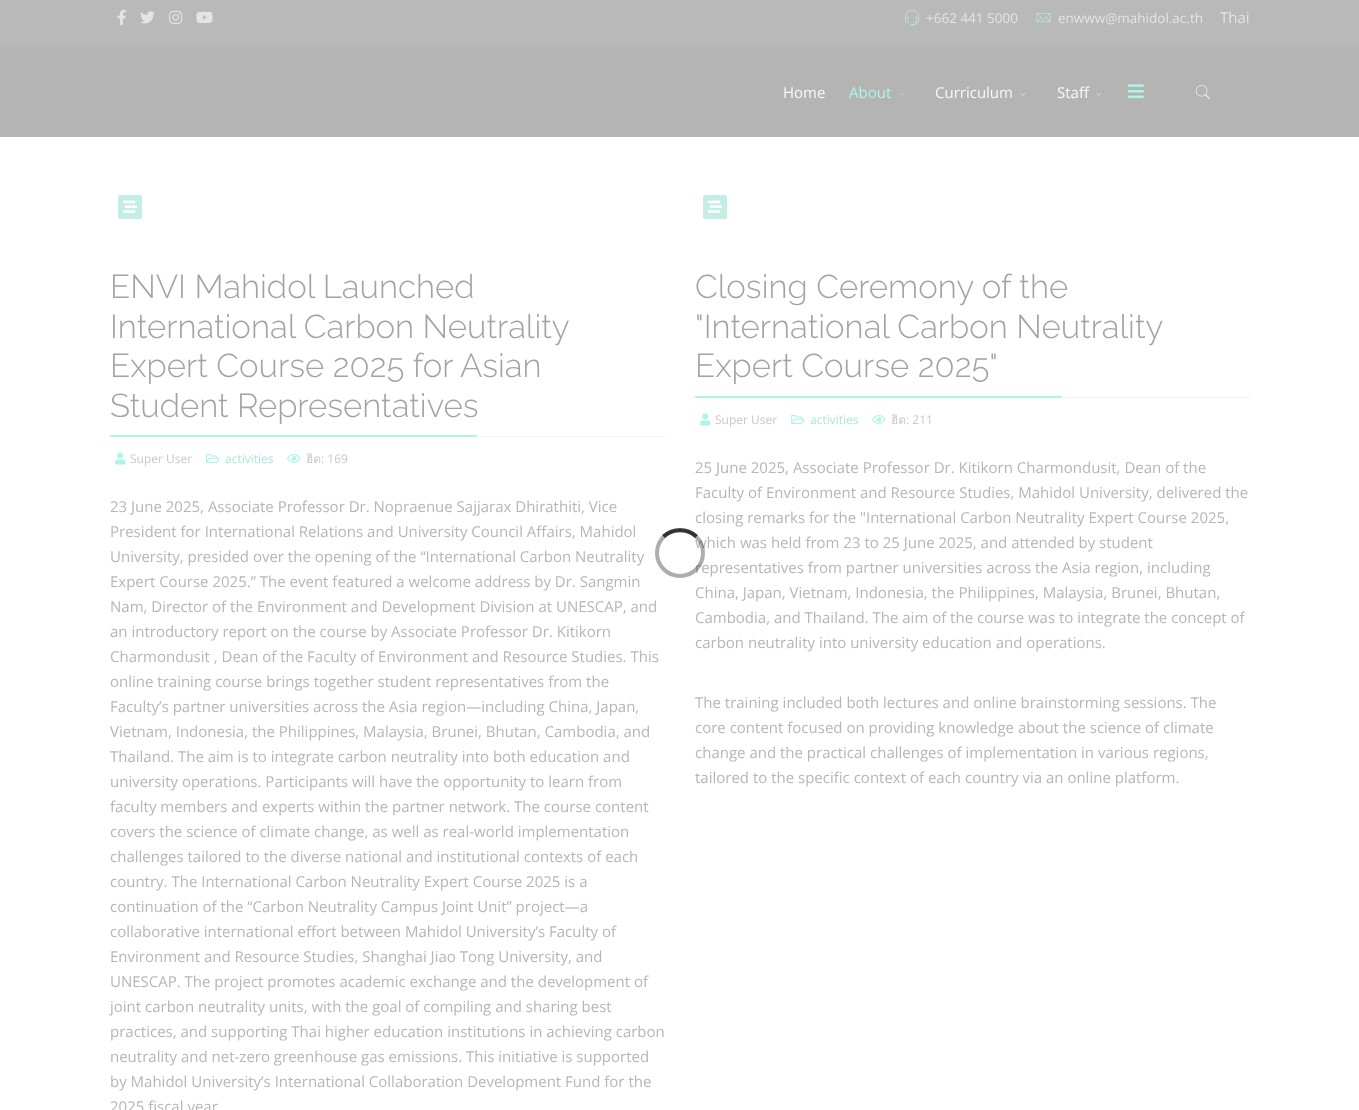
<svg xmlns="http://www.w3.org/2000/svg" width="1359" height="1110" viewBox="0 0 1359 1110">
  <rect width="100%" height="100%" fill="rgb(255,255,255)"/>
  <rect x="0" y="0" width="1359" height="47" fill="rgb(185,185,185)"/>
  <image x="117" y="9" width="9" height="16" href="pic1.png"/>
  <image x="140" y="11" width="15" height="13" href="pic2.png"/>
  <image x="169" y="10" width="14" height="14" href="pic3.png"/>
  <image x="196" y="11" width="17" height="12" href="pic4.png"/>
  <image x="905" y="9" width="15" height="17" href="pic5.png"/>
  <text x="926" y="23" font-family="Open Sans" font-size="13.5" fill="rgb(228,228,228)">+662 441 5000</text>
  <image x="1036" y="13" width="15" height="10" href="pic6.png"/>
  <text x="1058" y="23" font-family="Open Sans" font-size="13.5" fill="rgb(228,228,228)">enwww@mahidol.ac.th</text>
  <text x="1220" y="23" font-family="Open Sans" font-size="15" fill="rgb(228,228,228)">Thai</text>
  <rect x="0" y="47" width="1359" height="90" fill="rgb(180,180,180)"/>
  <text x="783" y="98" font-family="Open Sans" font-size="15" fill="rgb(249,249,249)">Home</text>
  <text x="849" y="98" font-family="Open Sans" font-size="15" fill="rgb(174,245,232)">About</text>
  <image x="899" y="93" width="6" height="3" href="pic7.png"/>
  <text x="935" y="98" font-family="Open Sans" font-size="15" fill="rgb(249,249,249)">Curriculum</text>
  <image x="1020" y="93" width="6" height="3" href="pic8.png"/>
  <text x="1057" y="98" font-family="Open Sans" font-size="15" fill="rgb(249,249,249)">Staff</text>
  <image x="1096" y="93" width="6" height="3" href="pic8.png"/>
  <image x="1128" y="84" width="16" height="15" href="pic9.png"/>
  <image x="1195" y="85" width="15" height="15" href="pic10.png"/>
  <rect x="118" y="195" width="24" height="24" rx="2" fill="rgb(196,237,229)"/>
  <image x="123" y="200" width="14" height="13" href="pic11.png"/>
  <rect x="110" y="436" width="555" height="1" fill="rgb(243,243,243)"/>
  <g font-family="Raleway" font-size="33" font-weight="300" fill="rgb(163,163,163)">
    <text>
      <tspan x="110" y="298">ENVI Mahidol Launched</tspan>
      <tspan x="110" y="338">International Carbon Neutrality</tspan>
      <tspan x="110" y="377">Expert Course 2025 for Asian</tspan>
      <tspan x="110" y="417">Student Representatives</tspan>
    </text>
  </g>
  <rect x="110" y="435" width="367" height="2" rx="1" fill="rgb(174,245,232)"/>
  <image x="115" y="452" width="11" height="13" href="pic12.png"/>
  <text x="130" y="463" font-family="Open Sans" font-size="12" fill="rgb(200,200,200)">Super User</text>
  <image x="206" y="454" width="14" height="9" href="pic13.png"/>
  <text x="225" y="463" font-family="Open Sans" font-size="12" fill="rgb(171,230,219)">activities</text>
  <image x="287" y="454" width="14" height="9" href="pic14.png"/>
  <text x="306" y="463" font-family="Loma" font-size="12" fill="rgb(200,200,200)">ฮิต</text>
  <text x="321" y="463" font-family="Open Sans" font-size="12" fill="rgb(200,200,200)">: 169</text>
  <g font-family="Open Sans" font-size="15" fill="rgb(182,182,182)">
    <text>
      <tspan x="110" y="512">23 June 2025, Associate Professor Dr. Nopraenue Sajjarax Dhirathiti, Vice</tspan>
      <tspan x="110" y="537">President for International Relations and University Council Affairs, Mahidol</tspan>
      <tspan x="110" y="562">University, presided over the opening of the “International Carbon Neutrality</tspan>
      <tspan x="110" y="587">Expert Course 2025.” The event featured a welcome address by Dr. Sangmin</tspan>
      <tspan x="110" y="612">Nam, Director of the Environment and Development Division at UNESCAP, and</tspan>
      <tspan x="110" y="637">an introductory report on the course by Associate Professor Dr. Kitikorn</tspan>
      <tspan x="110" y="662">Charmondusit , Dean of the Faculty of Environment and Resource Studies. This</tspan>
      <tspan x="110" y="687">online training course brings together student representatives from the</tspan>
      <tspan x="110" y="712">Faculty’s partner universities across the Asia region—including China, Japan,</tspan>
      <tspan x="110" y="737">Vietnam, Indonesia, the Philippines, Malaysia, Brunei, Bhutan, Cambodia, and</tspan>
      <tspan x="110" y="762">Thailand. The aim is to integrate carbon neutrality into both education and</tspan>
      <tspan x="110" y="787">university operations. Participants will have the opportunity to learn from</tspan>
      <tspan x="110" y="812">faculty members and experts within the partner network. The course content</tspan>
      <tspan x="110" y="837">covers the science of climate change, as well as real-world implementation</tspan>
      <tspan x="110" y="862">challenges tailored to the diverse national and institutional contexts of each</tspan>
      <tspan x="110" y="887">country. The International Carbon Neutrality Expert Course 2025 is a</tspan>
      <tspan x="110" y="912">continuation of the “Carbon Neutrality Campus Joint Unit” project—a</tspan>
      <tspan x="110" y="937">collaborative international effort between Mahidol University’s Faculty of</tspan>
      <tspan x="110" y="962">Environment and Resource Studies, Shanghai Jiao Tong University, and</tspan>
      <tspan x="110" y="987">UNESCAP. The project promotes academic exchange and the development of</tspan>
      <tspan x="110" y="1012">joint carbon neutrality units, with the goal of compiling and sharing best</tspan>
      <tspan x="110" y="1037">practices, and supporting Thai higher education institutions in achieving carbon</tspan>
      <tspan x="110" y="1062">neutrality and net-zero greenhouse gas emissions. This initiative is supported</tspan>
      <tspan x="110" y="1087">by Mahidol University’s International Collaboration Development Fund for the</tspan>
      <tspan x="110" y="1112">2025 fiscal year</tspan>
    </text>
  </g>
  <rect x="703" y="195" width="24" height="24" rx="2" fill="rgb(196,237,229)"/>
  <image x="708" y="200" width="14" height="13" href="pic11.png"/>
  <rect x="695" y="397" width="555" height="1" fill="rgb(243,243,243)"/>
  <g font-family="Raleway" font-size="33" font-weight="300" fill="rgb(163,163,163)">
    <text>
      <tspan x="695" y="298">Closing Ceremony of the</tspan>
      <tspan x="695" y="338">"International Carbon Neutrality</tspan>
      <tspan x="695" y="377">Expert Course 2025"</tspan>
    </text>
  </g>
  <rect x="695" y="396" width="367" height="2" rx="1" fill="rgb(174,245,232)"/>
  <image x="700" y="413" width="11" height="13" href="pic12.png"/>
  <text x="715" y="424" font-family="Open Sans" font-size="12" fill="rgb(200,200,200)">Super User</text>
  <image x="791" y="415" width="14" height="9" href="pic13.png"/>
  <text x="810" y="424" font-family="Open Sans" font-size="12" fill="rgb(171,230,219)">activities</text>
  <image x="872" y="415" width="14" height="9" href="pic14.png"/>
  <text x="891" y="424" font-family="Loma" font-size="12" fill="rgb(200,200,200)">ฮิต</text>
  <text x="906" y="424" font-family="Open Sans" font-size="12" fill="rgb(200,200,200)">: 211</text>
  <g font-family="Open Sans" font-size="15" fill="rgb(182,182,182)">
    <text>
      <tspan x="695" y="473">25 June 2025, Associate Professor Dr. Kitikorn Charmondusit, Dean of the</tspan>
      <tspan x="695" y="498">Faculty of Environment and Resource Studies, Mahidol University, delivered the</tspan>
      <tspan x="695" y="523">closing remarks for the "International Carbon Neutrality Expert Course 2025,</tspan>
      <tspan x="695" y="548">which was held from 23 to 25 June 2025, and attended by student</tspan>
      <tspan x="695" y="573">representatives from partner universities across the Asia region, including</tspan>
      <tspan x="695" y="598">China, Japan, Vietnam, Indonesia, the Philippines, Malaysia, Brunei, Bhutan,</tspan>
      <tspan x="695" y="623">Cambodia, and Thailand. The aim of the course was to integrate the concept of</tspan>
      <tspan x="695" y="648">carbon neutrality into university education and operations.</tspan>
    </text>
    <text>
      <tspan x="695" y="708">The training included both lectures and online brainstorming sessions. The</tspan>
      <tspan x="695" y="733">core content focused on providing knowledge about the science of climate</tspan>
      <tspan x="695" y="758">change and the practical challenges of implementation in various regions,</tspan>
      <tspan x="695" y="783">tailored to the specific context of each country via an online platform.</tspan>
    </text>
  </g>
  <circle cx="680" cy="553" r="23" fill="none" stroke="rgba(51,51,51,0.4)" stroke-width="4"/>
  <path d="M663.5 536.5C672.5 528 687.5 528 696.5 536.5" fill="none" stroke="rgb(51,51,51)" stroke-width="4"/>
</svg>
